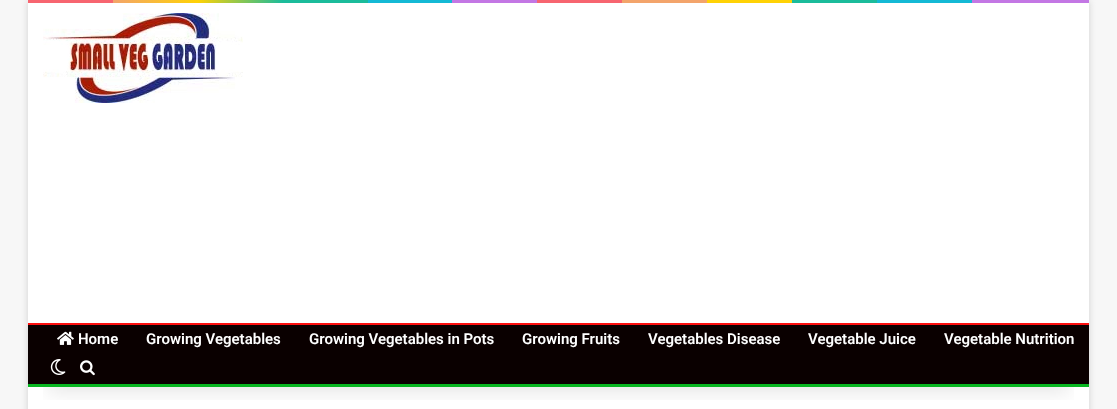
<svg xmlns="http://www.w3.org/2000/svg" width="1117" height="409" viewBox="0 0 1117 409">
  <defs>
    <linearGradient id="g1" gradientUnits="userSpaceOnUse" x1="28" y1="1.5" x2="1089" y2="1.5"><stop offset="0" stop-color="rgb(247,101,112)"/><stop offset="0.08" stop-color="rgb(247,101,112)"/><stop offset="0.08" stop-color="rgb(243,164,107)"/><stop offset="0.16" stop-color="rgb(255,210,5)"/><stop offset="0.24" stop-color="rgb(27,188,155)"/><stop offset="0.32" stop-color="rgb(27,188,155)"/><stop offset="0.32" stop-color="rgb(20,185,213)"/><stop offset="0.4" stop-color="rgb(20,185,213)"/><stop offset="0.4" stop-color="rgb(195,119,228)"/><stop offset="0.48" stop-color="rgb(195,119,228)"/><stop offset="0.48" stop-color="rgb(247,101,112)"/><stop offset="0.56" stop-color="rgb(247,101,112)"/><stop offset="0.56" stop-color="rgb(243,164,107)"/><stop offset="0.64" stop-color="rgb(243,164,107)"/><stop offset="0.64" stop-color="rgb(255,210,5)"/><stop offset="0.72" stop-color="rgb(255,210,5)"/><stop offset="0.72" stop-color="rgb(27,188,155)"/><stop offset="0.8" stop-color="rgb(27,188,155)"/><stop offset="0.8" stop-color="rgb(20,185,213)"/><stop offset="0.89" stop-color="rgb(20,185,213)"/><stop offset="0.89" stop-color="rgb(195,119,228)"/><stop offset="1" stop-color="rgb(195,119,228)"/></linearGradient>
    <clipPath id="clip1"><rect x="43" y="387" width="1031" height="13"/></clipPath>
  </defs>
  <rect width="100%" height="100%" fill="rgb(247,247,247)"/>
  <rect x="28" y="1" width="1061" height="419" fill="rgba(171,171,171,0.5)" filter="blur(3.5px)"/>
  <rect x="28" y="3" width="1061" height="406" fill="rgb(255,255,255)"/>
  <rect x="28" y="0" width="1061" height="3" fill="url(#g1)"/>
  <g clip-path="url(#clip1)">
    <rect x="48" y="48" width="1021" height="344" fill="rgba(0,0,0,0.1)" filter="blur(10px)"/>
  </g>
  <image x="43" y="13" width="200" height="90" href="pic1.png"/>
  <rect x="28" y="325" width="1061" height="59" fill="rgb(10,0,0)"/>
  <rect x="28" y="323" width="1061" height="2" fill="rgb(252,15,15)"/>
  <rect x="28" y="384" width="1061" height="3" fill="rgb(7,183,32)"/>
  <image x="57" y="331" width="17" height="14" href="pic2.png"/>
  <g font-family="Roboto" font-size="15" font-weight="600" fill="rgb(255,255,255)">
    <text x="78" y="344">Home</text>
    <text x="146" y="344">Growing Vegetables</text>
    <text x="309" y="344">Growing Vegetables in Pots</text>
    <text x="522" y="344">Growing Fruits</text>
    <text x="648" y="344">Vegetables Disease</text>
    <text x="808" y="344">Vegetable Juice</text>
    <text x="944" y="344">Vegetable Nutrition</text>
  </g>
  <image x="50" y="359" width="16" height="16" href="pic3.png"/>
  <image x="80" y="360" width="15" height="16" href="pic4.png"/>
</svg>
